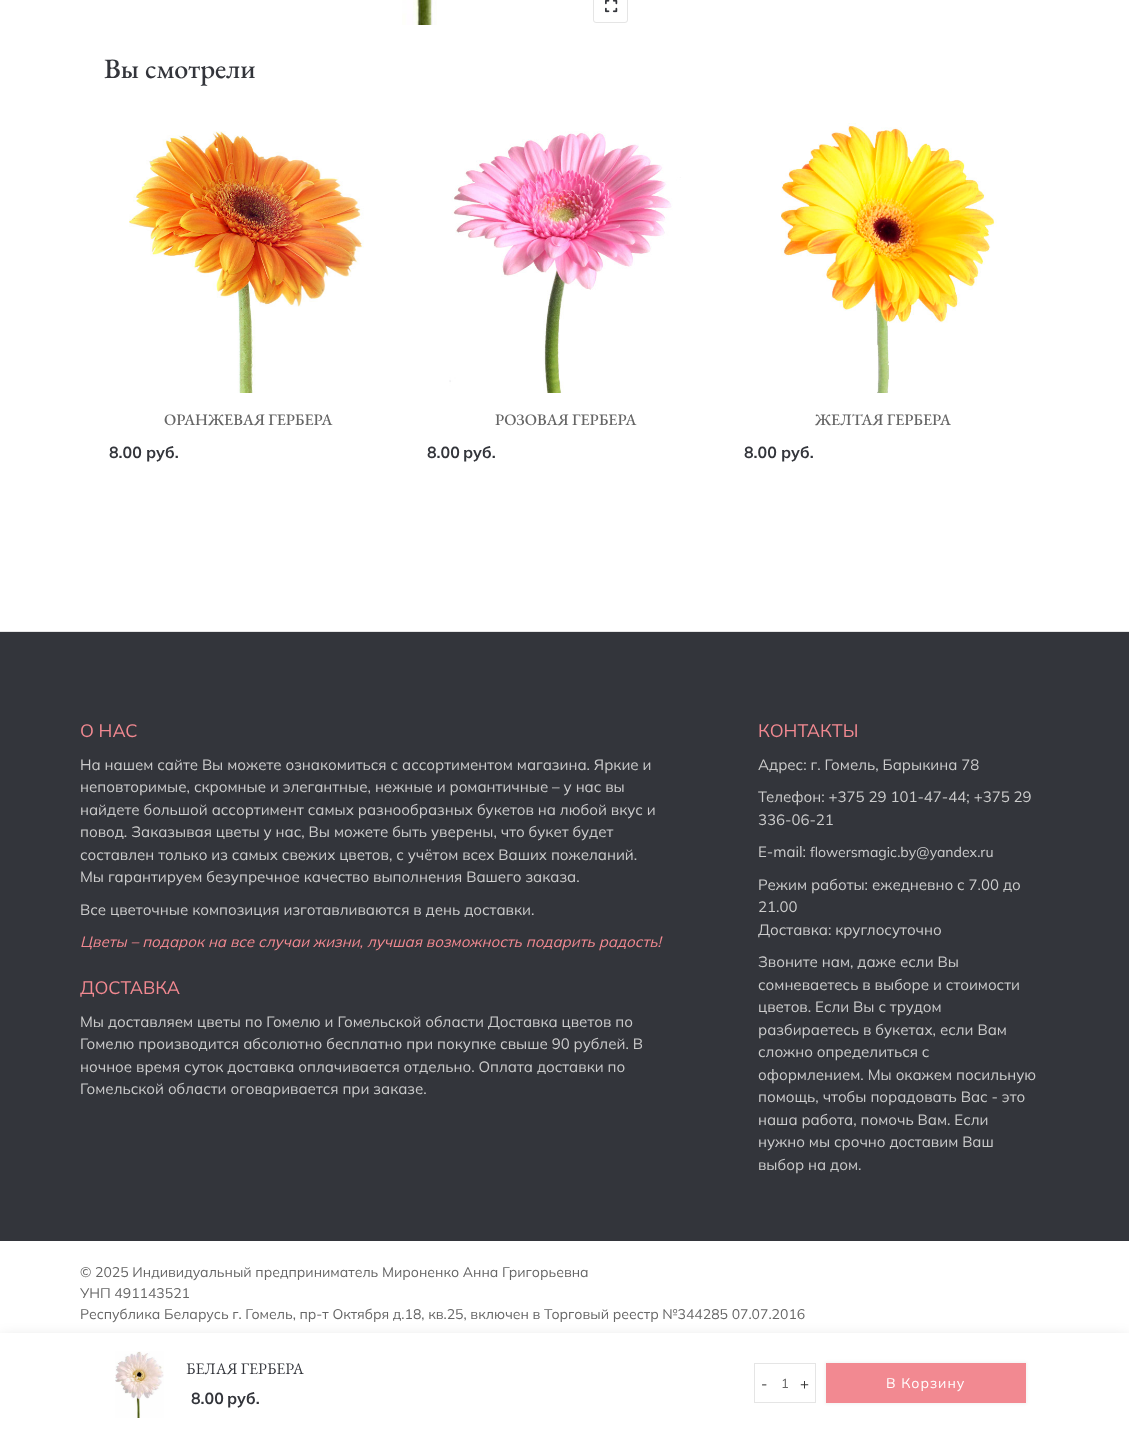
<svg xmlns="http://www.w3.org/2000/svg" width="1129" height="1433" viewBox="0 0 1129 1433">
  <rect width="100%" height="100%" fill="rgb(255,255,255)"/>
  <text x="104" y="78" font-family="EB Garamond" font-size="28" font-weight="500" fill="rgb(51,53,59)">Вы смотрели</text>
  <image x="129" y="131" width="235" height="262" href="pic1.png"/>
  <text x="164" y="425" font-family="EB Garamond" font-size="16" font-weight="500" fill="rgb(102,102,102)">ОРАНЖЕВАЯ ГЕРБЕРА</text>
  <g font-family="Mulish" font-size="16" font-weight="bold" fill="rgb(51,53,59)">
    <text x="109" y="458">8.00</text>
    <text x="146" y="458">руб.</text>
  </g>
  <image x="449" y="131" width="232" height="262" href="pic2.png"/>
  <text x="495" y="425" font-family="EB Garamond" font-size="16" font-weight="500" fill="rgb(102,102,102)">РОЗОВАЯ ГЕРБЕРА</text>
  <g font-family="Mulish" font-size="16" font-weight="bold" fill="rgb(51,53,59)">
    <text x="427" y="458">8.00</text>
    <text x="463" y="458">руб.</text>
  </g>
  <image x="781" y="123" width="216" height="270" href="pic3.png"/>
  <text x="815" y="425" font-family="EB Garamond" font-size="16" font-weight="500" fill="rgb(102,102,102)">ЖЕЛТАЯ ГЕРБЕРА</text>
  <g font-family="Mulish" font-size="16" font-weight="bold" fill="rgb(51,53,59)">
    <text x="744" y="458">8.00</text>
    <text x="781" y="458">руб.</text>
  </g>
  <image x="402" y="0" width="35" height="25" href="pic4.png"/>
  <rect x="593.5" y="-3.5" width="34" height="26" rx="2.5" fill="none" stroke="rgb(229,229,229)"/>
  <image x="605" y="0" width="13" height="13" href="pic5.png"/>
  <rect x="0" y="1338" width="1129" height="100" fill="rgba(1,2,4,0.15)" filter="blur(7.5px)"/>
  <rect x="0" y="1333" width="1129" height="100" fill="rgb(255,255,255)"/>
  <image x="115" y="1351" width="49" height="67" href="pic6.png"/>
  <text x="186" y="1374" font-family="EB Garamond" font-size="16" fill="rgb(51,53,59)">БЕЛАЯ ГЕРБЕРА</text>
  <g font-family="Mulish" font-size="16" font-weight="bold" fill="rgb(51,53,59)">
    <text x="191" y="1404">8.00</text>
    <text x="227" y="1404">руб.</text>
  </g>
  <rect x="754.5" y="1363.5" width="61" height="39" fill="none" stroke="rgb(229,229,229)"/>
  <text x="761" y="1389" font-family="Mulish" font-size="15" fill="rgb(51,51,51)">-</text>
  <text x="781" y="1388" font-family="Mulish" font-size="13" fill="rgb(102,102,102)">1</text>
  <text x="800" y="1389" font-family="Mulish" font-size="15" fill="rgb(51,51,51)">+</text>
  <rect x="825" y="1362" width="202" height="42" fill="rgba(1,1,1,0.05)" filter="blur(1.5px)"/>
  <rect x="826" y="1363" width="200" height="40" fill="rgb(242,137,145)"/>
  <text x="886" y="1388" font-family="Mulish" font-size="14" letter-spacing="1" fill="rgb(255,255,255)">В Корзину</text>
  <rect x="0" y="632" width="1129" height="609" fill="rgb(51,53,59)"/>
  <rect x="0" y="631" width="1129" height="1" fill="rgb(229,229,229)"/>
  <text x="80" y="737" font-family="Mulish" font-size="18" fill="rgb(242,137,145)">О НАС</text>
  <g font-family="Mulish" font-size="15" fill="rgb(204,204,204)">
    <text>
      <tspan x="80" y="770">На нашем сайте Вы можете ознакомиться с ассортиментом магазина. Яркие и</tspan>
      <tspan x="80" y="792">неповторимые, скромные и элегантные, нежные и романтичные – у нас вы</tspan>
      <tspan x="80" y="815">найдете большой ассортимент самых разнообразных букетов на любой вкус и</tspan>
      <tspan x="80" y="837">повод. Заказывая цветы у нас, Вы можете быть уверены, что букет будет</tspan>
      <tspan x="80" y="860">составлен только из самых свежих цветов, с учётом всех Ваших пожеланий.</tspan>
      <tspan x="80" y="882">Мы гарантируем безупречное качество выполнения Вашего заказа.</tspan>
    </text>
    <text x="80" y="915">Все цветочные композиция изготавливаются в день доставки.</text>
  </g>
  <text x="80" y="947" font-family="Mulish" font-size="15" font-style="italic" fill="rgb(242,137,145)">Цветы – подарок на все случаи жизни, лучшая возможность подарить радость!</text>
  <text x="80" y="994" font-family="Mulish" font-size="18" fill="rgb(242,137,145)">ДОСТАВКА</text>
  <g font-family="Mulish" font-size="15" fill="rgb(204,204,204)">
    <text>
      <tspan x="80" y="1027">Мы доставляем цветы по Гомелю и Гомельской области Доставка цветов по</tspan>
      <tspan x="80" y="1049">Гомелю производится абсолютно бесплатно при покупке свыше 90 рублей. В</tspan>
      <tspan x="80" y="1072">ночное время суток доставка оплачивается отдельно. Оплата доставки по</tspan>
      <tspan x="80" y="1094">Гомельской области оговаривается при заказе.</tspan>
    </text>
  </g>
  <text x="758" y="737" font-family="Mulish" font-size="18" fill="rgb(242,137,145)">КОНТАКТЫ</text>
  <g font-family="Mulish" font-size="15" fill="rgb(204,204,204)">
    <text x="758" y="770">Адрес: г. Гомель, Барыкина 78</text>
    <text>
      <tspan x="758" y="802">Телефон: +375 29 101-47-44; +375 29</tspan>
      <tspan x="758" y="825">336-06-21</tspan>
    </text>
    <text x="758" y="857">E-mail:</text>
  </g>
  <text x="810" y="857" font-family="Mulish" font-size="14" fill="rgb(204,204,204)">flowersmagic.by@yandex.ru</text>
  <g font-family="Mulish" font-size="15" fill="rgb(204,204,204)">
    <text>
      <tspan x="758" y="890">Режим работы: ежедневно с 7.00 до</tspan>
      <tspan x="758" y="912">21.00</tspan>
      <tspan x="758" y="935">Доставка: круглосуточно</tspan>
    </text>
    <text>
      <tspan x="758" y="967">Звоните нам, даже если Вы</tspan>
      <tspan x="758" y="990">сомневаетесь в выборе и стоимости</tspan>
      <tspan x="758" y="1012">цветов. Если Вы с трудом</tspan>
      <tspan x="758" y="1035">разбираетесь в букетах, если Вам</tspan>
      <tspan x="758" y="1057">сложно определиться с</tspan>
      <tspan x="758" y="1080">оформлением. Мы окажем посильную</tspan>
      <tspan x="758" y="1102">помощь, чтобы порадовать Вас - это</tspan>
      <tspan x="758" y="1125">наша работа, помочь Вам. Если</tspan>
      <tspan x="758" y="1147">нужно мы срочно доставим Ваш</tspan>
      <tspan x="758" y="1170">выбор на дом.</tspan>
    </text>
  </g>
  <g font-family="Mulish" font-size="14" fill="rgb(102,102,102)">
    <text>
      <tspan x="80" y="1277">© 2025 Индивидуальный предприниматель Мироненко Анна Григорьевна</tspan>
      <tspan x="80" y="1298">УНП 491143521</tspan>
      <tspan x="80" y="1319">Республика Беларусь г. Гомель, пр-т Октября д.18, кв.25, включен в Торговый реестр №344285 07.07.2016</tspan>
    </text>
  </g>
</svg>
